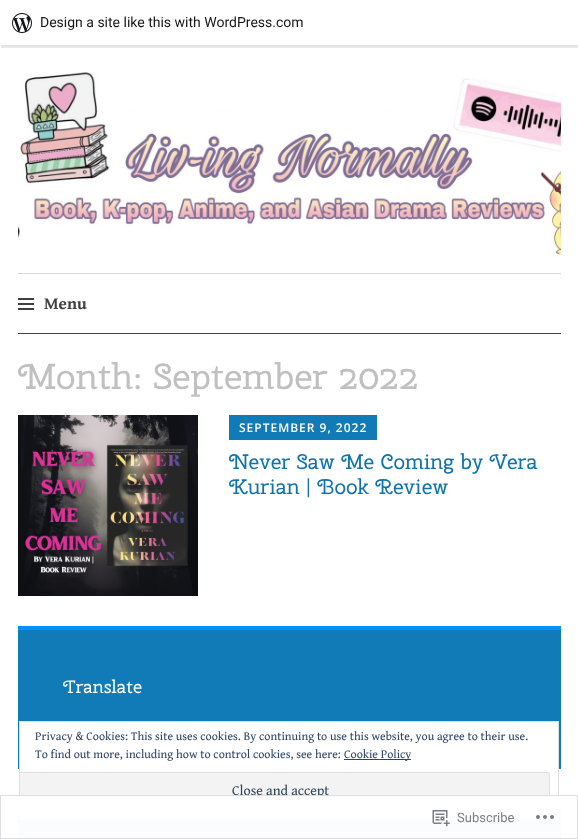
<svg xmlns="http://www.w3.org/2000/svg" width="578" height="839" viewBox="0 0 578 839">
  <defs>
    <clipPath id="clip1"><rect x="20" y="722" width="538" height="97"/></clipPath>
  </defs>
  <rect width="100%" height="100%" fill="rgb(255,255,255)"/>
  <rect x="0" y="1" width="578" height="45" fill="rgba(0,0,0,0.05)" filter="blur(1px)"/>
  <path d="M1 45V48H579V3H578V45Z" fill="rgba(0,0,0,0.08)"/>
  <rect x="0" y="0" width="578" height="45" fill="rgb(255,255,255)"/>
  <image x="12" y="13" width="20" height="20" href="pic1.png"/>
  <text x="40" y="27" font-family="Roboto" font-size="14" fill="rgb(23,23,23)">Design a site like this with WordPress.com</text>
  <image x="18" y="72" width="543" height="186" href="pic2.png"/>
  <rect x="18" y="273" width="543" height="1" fill="rgb(217,217,217)"/>
  <rect x="18" y="333" width="543" height="1" fill="rgb(64,64,64)"/>
  <image x="18" y="298" width="16" height="12" href="pic3.png"/>
  <text x="44" y="309" font-family="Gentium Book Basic" font-size="17" font-weight="bold" fill="rgb(64,64,64)">Menu</text>
  <text x="18" y="389" font-family="Cherry Swash" font-size="36" fill="rgb(192,192,192)">Month: September 2022</text>
  <image x="18" y="415" width="180" height="181" href="pic4.png"/>
  <rect x="229" y="415" width="148" height="25" fill="rgb(17,123,184)"/>
  <text x="239" y="432" font-family="Open Sans" font-size="12" font-weight="600" letter-spacing="1" fill="rgb(255,255,255)">SEPTEMBER 9, 2022</text>
  <g font-family="Cherry Swash" font-size="21" fill="rgb(16,115,172)">
    <text>
      <tspan x="229" y="469">Never Saw Me Coming by Vera</tspan>
      <tspan x="229" y="494">Kurian | Book Review</tspan>
    </text>
  </g>
  <rect x="18" y="630" width="543" height="139" fill="rgb(17,123,184)"/>
  <rect x="18" y="626" width="543" height="4" fill="rgb(0,147,254)"/>
  <text x="63" y="693" font-family="Cherry Swash" font-size="18" fill="rgb(255,255,255)">Translate</text>
  <rect x="18" y="814" width="543" height="25" fill="rgb(17,123,184)"/>
  <rect x="18" y="810" width="543" height="4" fill="rgb(0,147,254)"/>
  <rect x="19.5" y="721.5" width="539" height="98" fill="rgb(255,255,255)" stroke="rgb(222,222,222)"/>
  <g font-family="Gentium Book Basic" font-size="12" fill="rgb(46,68,103)">
    <text>
      <tspan x="35" y="740">Privacy &amp; Cookies: This site uses cookies. By continuing to use this website, you agree to their use.</tspan>
      <tspan x="35" y="758">To find out more, including how to control cookies, see here:</tspan>
    </text>
  </g>
  <rect x="344" y="759" width="67" height="1" fill="rgb(46,68,103)"/>
  <text x="344" y="758" font-family="Gentium Book Basic" font-size="12" fill="rgb(46,68,103)">Cookie Policy</text>
  <path d="M20 772H547C548.5 772 550 773.5 550 775V808C550 809.5 548.5 811 547 811H20Z" fill="rgb(243,243,243)"/>
  <g clip-path="url(#clip1)">
    <rect x="12.5" y="772.5" width="537" height="38" rx="2.5" fill="none" stroke="rgb(222,222,222)"/>
  </g>
  <text x="232" y="795" font-family="Gentium Book Basic" font-size="14" fill="rgb(46,68,83)">Close and accept</text>
  <rect x="18" y="795" width="543" height="44" fill="rgba(255,255,255,0.98)"/>
  <rect x="0.5" y="795.5" width="577" height="43" fill="none" stroke="rgba(220,220,222,0.98)"/>
  <image x="432" y="810" width="18" height="17" href="pic5.png"/>
  <text x="457" y="822" font-family="Roboto" font-size="13" fill="rgb(123,127,132)">Subscribe</text>
  <image x="536" y="815" width="18" height="4" href="pic6.png"/>
</svg>
